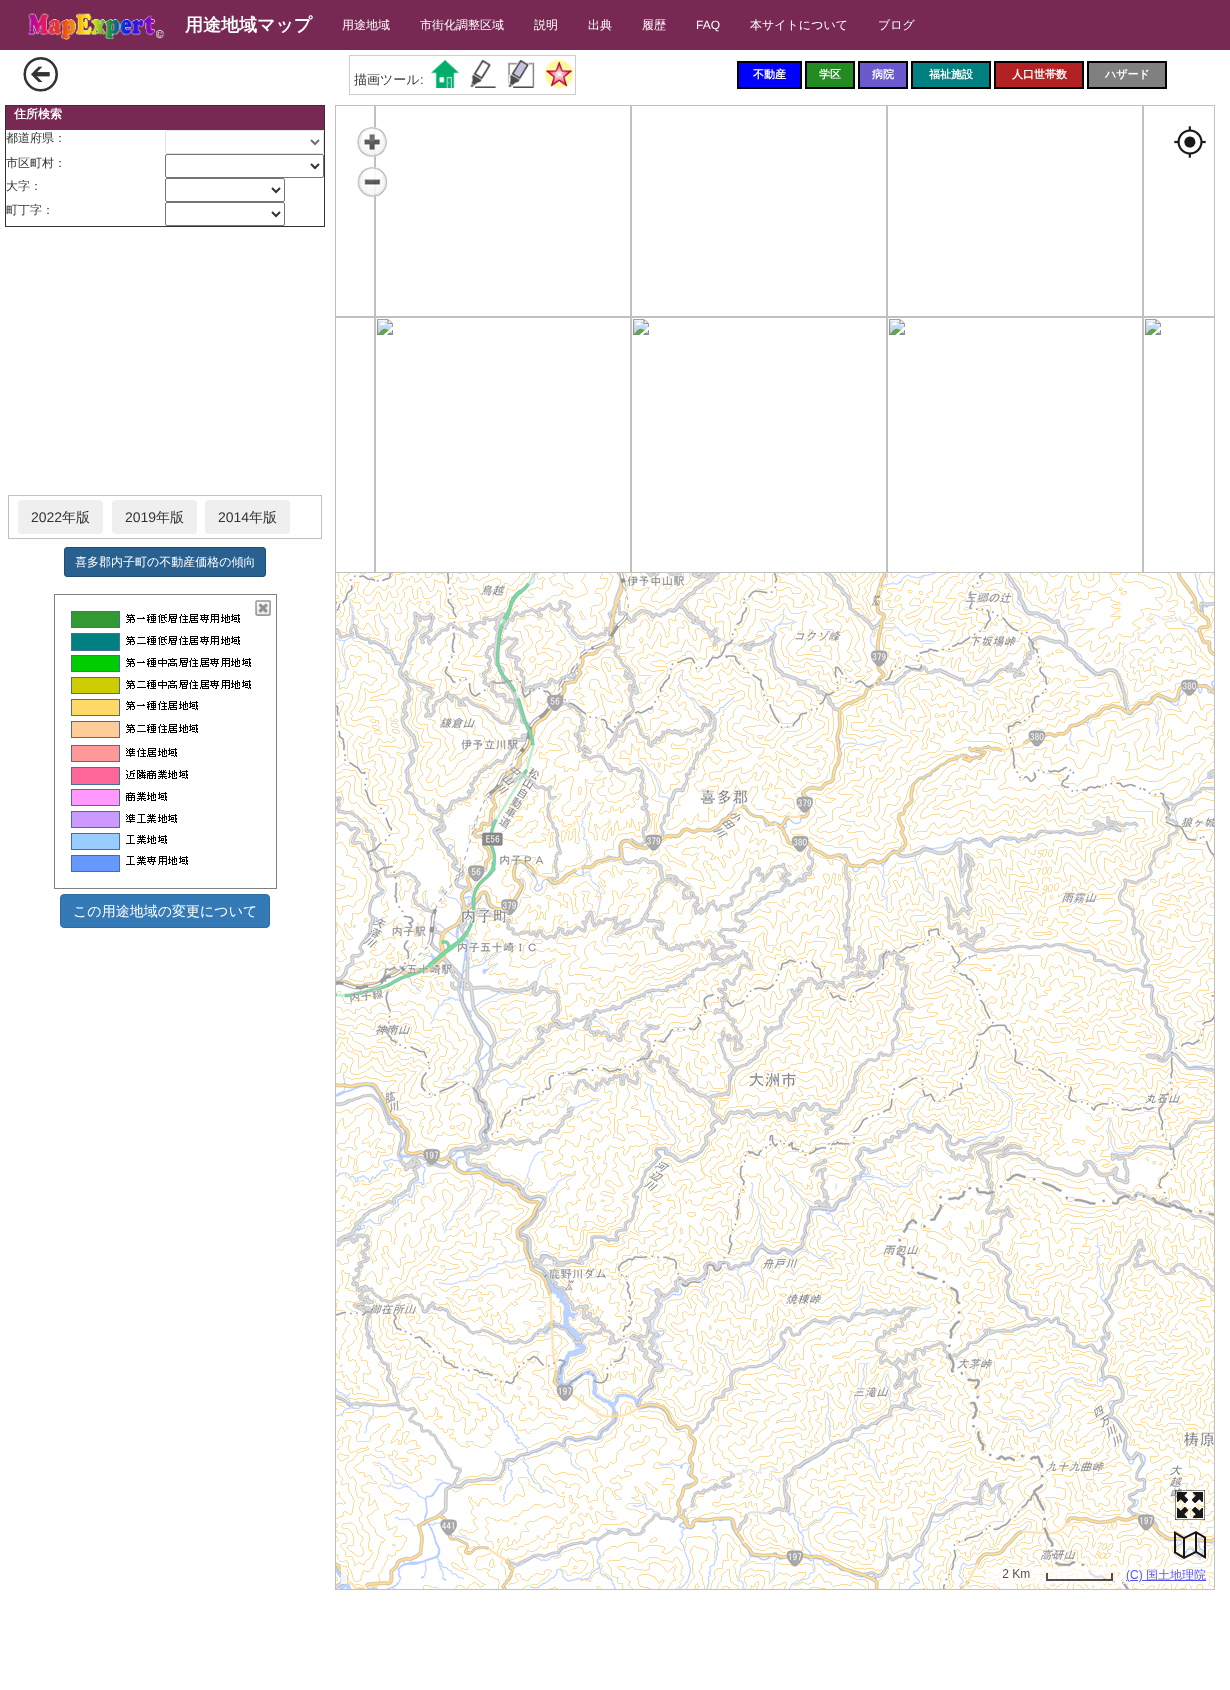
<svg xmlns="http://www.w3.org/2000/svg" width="1230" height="1690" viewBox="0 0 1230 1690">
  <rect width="100%" height="100%" fill="rgb(255,255,255)"/>
  <rect x="0" y="0" width="1230" height="50" fill="rgb(119,41,83)"/>
  <image x="28" y="13" width="137" height="27" href="pic1.png"/>
  <text x="185" y="31" font-family="WenQuanYi Zen Hei" font-size="18" font-weight="bold" fill="rgb(255,255,255)">用途地域マップ</text>
  <g font-family="WenQuanYi Zen Hei" font-size="12" font-weight="500" fill="rgb(255,255,255)">
    <text x="342" y="29">用途地域</text>
    <text x="420" y="29">市街化調整区域</text>
    <text x="534" y="29">説明</text>
    <text x="588" y="29">出典</text>
    <text x="642" y="29">履歴</text>
  </g>
  <text x="696" y="29" font-family="Liberation Sans" font-size="12" fill="rgb(255,255,255)">FAQ</text>
  <g font-family="WenQuanYi Zen Hei" font-size="12" font-weight="500" fill="rgb(255,255,255)">
    <text x="750" y="29">本サイトについて</text>
    <text x="878" y="29">ブログ</text>
  </g>
  <image x="23" y="57" width="35" height="35" href="pic2.png"/>
  <rect x="349.5" y="55.5" width="226" height="39" fill="none" stroke="rgb(204,204,204)"/>
  <text x="354" y="84" font-family="WenQuanYi Zen Hei" font-size="13" font-weight="500" fill="rgb(51,51,51)">描画ツール</text>
  <text x="420" y="84" font-family="Liberation Sans" font-size="13" fill="rgb(51,51,51)">:</text>
  <image x="431" y="60" width="28" height="28" href="pic3.png"/>
  <image x="470" y="60" width="27" height="28" href="pic4.png"/>
  <image x="507" y="60" width="28" height="28" href="pic5.png"/>
  <image x="545" y="60" width="28" height="28" href="pic6.png"/>
  <rect x="738" y="62" width="63" height="26" fill="rgb(0,0,255)" stroke="rgb(0,0,0)" stroke-width="2"/>
  <text x="753" y="78" font-family="WenQuanYi Zen Hei" font-size="11" font-weight="bold" fill="rgb(255,255,255)">不動産</text>
  <rect x="806" y="62" width="48" height="26" fill="rgb(34,139,34)" stroke="rgb(0,0,0)" stroke-width="2"/>
  <text x="819" y="78" font-family="WenQuanYi Zen Hei" font-size="11" font-weight="bold" fill="rgb(255,255,255)">学区</text>
  <rect x="859" y="62" width="48" height="26" fill="rgb(106,90,205)" stroke="rgb(0,0,0)" stroke-width="2"/>
  <text x="872" y="78" font-family="WenQuanYi Zen Hei" font-size="11" font-weight="bold" fill="rgb(255,255,255)">病院</text>
  <rect x="912" y="62" width="78" height="26" fill="rgb(0,128,128)" stroke="rgb(0,0,0)" stroke-width="2"/>
  <text x="929" y="78" font-family="WenQuanYi Zen Hei" font-size="11" font-weight="bold" fill="rgb(255,255,255)">福祉施設</text>
  <rect x="995" y="62" width="88" height="26" fill="rgb(178,34,34)" stroke="rgb(0,0,0)" stroke-width="2"/>
  <text x="1012" y="78" font-family="WenQuanYi Zen Hei" font-size="11" font-weight="bold" fill="rgb(255,255,255)">人口世帯数</text>
  <rect x="1088" y="62" width="78" height="26" fill="rgb(128,128,128)" stroke="rgb(0,0,0)" stroke-width="2"/>
  <text x="1105" y="78" font-family="WenQuanYi Zen Hei" font-size="11" font-weight="bold" fill="rgb(255,255,255)">ハザード</text>
  <rect x="5.5" y="105.5" width="319" height="121" fill="none" stroke="rgb(51,51,51)"/>
  <rect x="6" y="106" width="318" height="24" fill="rgb(119,41,83)"/>
  <text x="14" y="118" font-family="WenQuanYi Zen Hei" font-size="12" font-weight="bold" fill="rgb(255,255,255)">住所検索</text>
  <text x="6" y="142" font-family="WenQuanYi Zen Hei" font-size="12" font-weight="500" fill="rgb(51,51,51)">都道府県：</text>
  <rect x="165.5" y="130.5" width="158" height="23" rx="1.5" fill="none" stroke="rgb(226,226,226)"/>
  <path d="M311 140L315 144L319 140" fill="none" stroke="rgb(112,112,112)" stroke-width="2"/>
  <text x="6" y="167" font-family="WenQuanYi Zen Hei" font-size="12" font-weight="500" fill="rgb(51,51,51)">市区町村：</text>
  <rect x="165.5" y="154.5" width="158" height="23" rx="1.5" fill="none" stroke="rgb(118,118,118)"/>
  <path d="M311 164L315 168L319 164" fill="none" stroke="rgb(51,51,51)" stroke-width="2"/>
  <text x="6" y="190" font-family="WenQuanYi Zen Hei" font-size="12" font-weight="500" fill="rgb(51,51,51)">大字：</text>
  <rect x="165.5" y="178.5" width="119" height="23" rx="1.5" fill="none" stroke="rgb(118,118,118)"/>
  <path d="M272 188L276 192L280 188" fill="none" stroke="rgb(51,51,51)" stroke-width="2"/>
  <text x="6" y="214" font-family="WenQuanYi Zen Hei" font-size="12" font-weight="500" fill="rgb(51,51,51)">町丁字：</text>
  <rect x="165.5" y="202.5" width="119" height="23" rx="1.5" fill="none" stroke="rgb(118,118,118)"/>
  <path d="M272 212L276 216L280 212" fill="none" stroke="rgb(51,51,51)" stroke-width="2"/>
  <rect x="8.5" y="495.5" width="313" height="43" fill="none" stroke="rgb(192,192,192)"/>
  <rect x="18" y="500" width="85" height="34" rx="4" fill="rgb(239,239,239)"/>
  <text x="31" y="522" font-family="Liberation Sans" font-size="14" fill="rgb(51,51,51)">2022</text>
  <text x="62" y="522" font-family="WenQuanYi Zen Hei" font-size="14" font-weight="500" fill="rgb(51,51,51)">年版</text>
  <rect x="112" y="500" width="85" height="34" rx="4" fill="rgb(239,239,239)"/>
  <text x="125" y="522" font-family="Liberation Sans" font-size="14" fill="rgb(51,51,51)">2019</text>
  <text x="156" y="522" font-family="WenQuanYi Zen Hei" font-size="14" font-weight="500" fill="rgb(51,51,51)">年版</text>
  <rect x="205" y="500" width="85" height="34" rx="4" fill="rgb(239,239,239)"/>
  <text x="218" y="522" font-family="Liberation Sans" font-size="14" fill="rgb(51,51,51)">2014</text>
  <text x="249" y="522" font-family="WenQuanYi Zen Hei" font-size="14" font-weight="500" fill="rgb(51,51,51)">年版</text>
  <rect x="64.5" y="547.5" width="201" height="29" rx="2.5" fill="rgb(40,96,144)" stroke="rgb(32,77,116)"/>
  <text x="75" y="566" font-family="WenQuanYi Zen Hei" font-size="12" font-weight="500" fill="rgb(255,255,255)">喜多郡内子町の不動産価格の傾向</text>
  <rect x="54.5" y="594.5" width="222" height="294" fill="none" stroke="rgb(128,128,128)"/>
  <image x="255" y="600" width="16" height="16" href="pic7.png"/>
  <image x="71" y="611" width="180" height="261" href="pic8.png"/>
  <rect x="60.5" y="894.5" width="209" height="33" rx="3.5" fill="rgb(51,122,183)" stroke="rgb(46,109,164)"/>
  <text x="73" y="916" font-family="WenQuanYi Zen Hei" font-size="14" font-weight="500" fill="rgb(255,255,255)">この用途地域の変更について</text>
  <rect x="335.5" y="105.5" width="879" height="1484" fill="none" stroke="rgb(192,192,192)"/>
  <image x="336" y="106" width="878" height="1483" href="pic9.png"/>
</svg>
